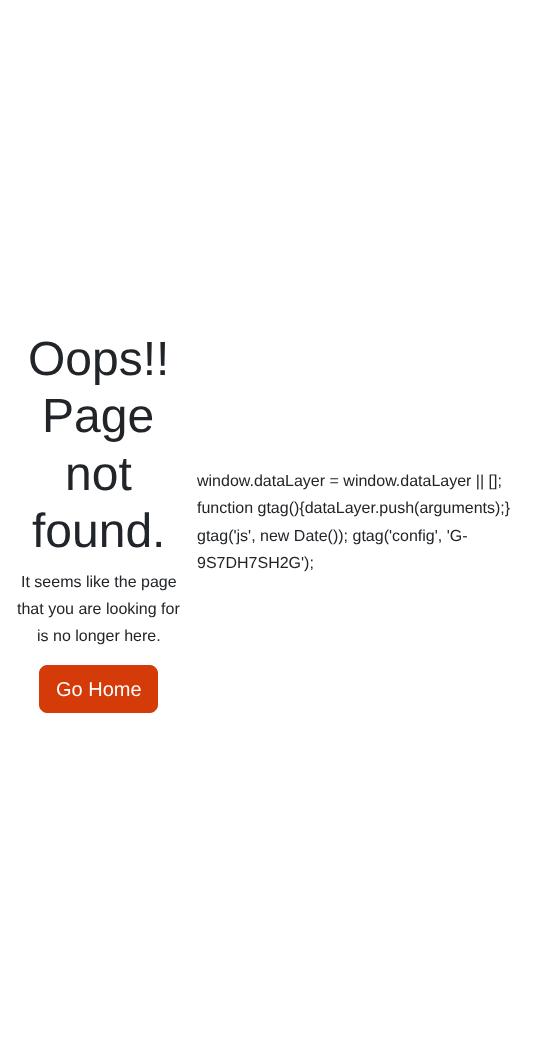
<svg xmlns="http://www.w3.org/2000/svg" width="538" height="1043" viewBox="0 0 538 1043">
  <rect width="100%" height="100%" fill="rgb(255,255,255)"/>
  <g font-family="Liberation Sans" font-size="48" fill="rgb(33,37,41)">
    <text x="28" y="375">Oops!!</text>
    <text x="42" y="432">Page</text>
    <text x="65" y="490">not</text>
    <text x="32" y="547">found.</text>
  </g>
  <g font-family="Liberation Sans" font-size="16" fill="rgb(33,37,41)">
    <text x="21" y="587">It seems like the page</text>
    <text x="17" y="614">that you are looking for</text>
    <text x="37" y="641">is no longer here.</text>
  </g>
  <rect x="39.5" y="665.5" width="118" height="47" rx="7.5" fill="rgb(212,59,9)" stroke="rgb(212,59,9)"/>
  <text x="56" y="696" font-family="Liberation Sans" font-size="20" fill="rgb(255,255,255)">Go Home</text>
  <g font-family="Liberation Sans" font-size="16" fill="rgb(33,37,41)">
    <text>
      <tspan x="197" y="486">window.dataLayer = window.dataLayer || [];</tspan>
      <tspan x="197" y="513">function gtag(){dataLayer.push(arguments);}</tspan>
      <tspan x="197" y="541">gtag('js', new Date()); gtag('config', 'G-</tspan>
      <tspan x="197" y="568">9S7DH7SH2G');</tspan>
    </text>
  </g>
</svg>
